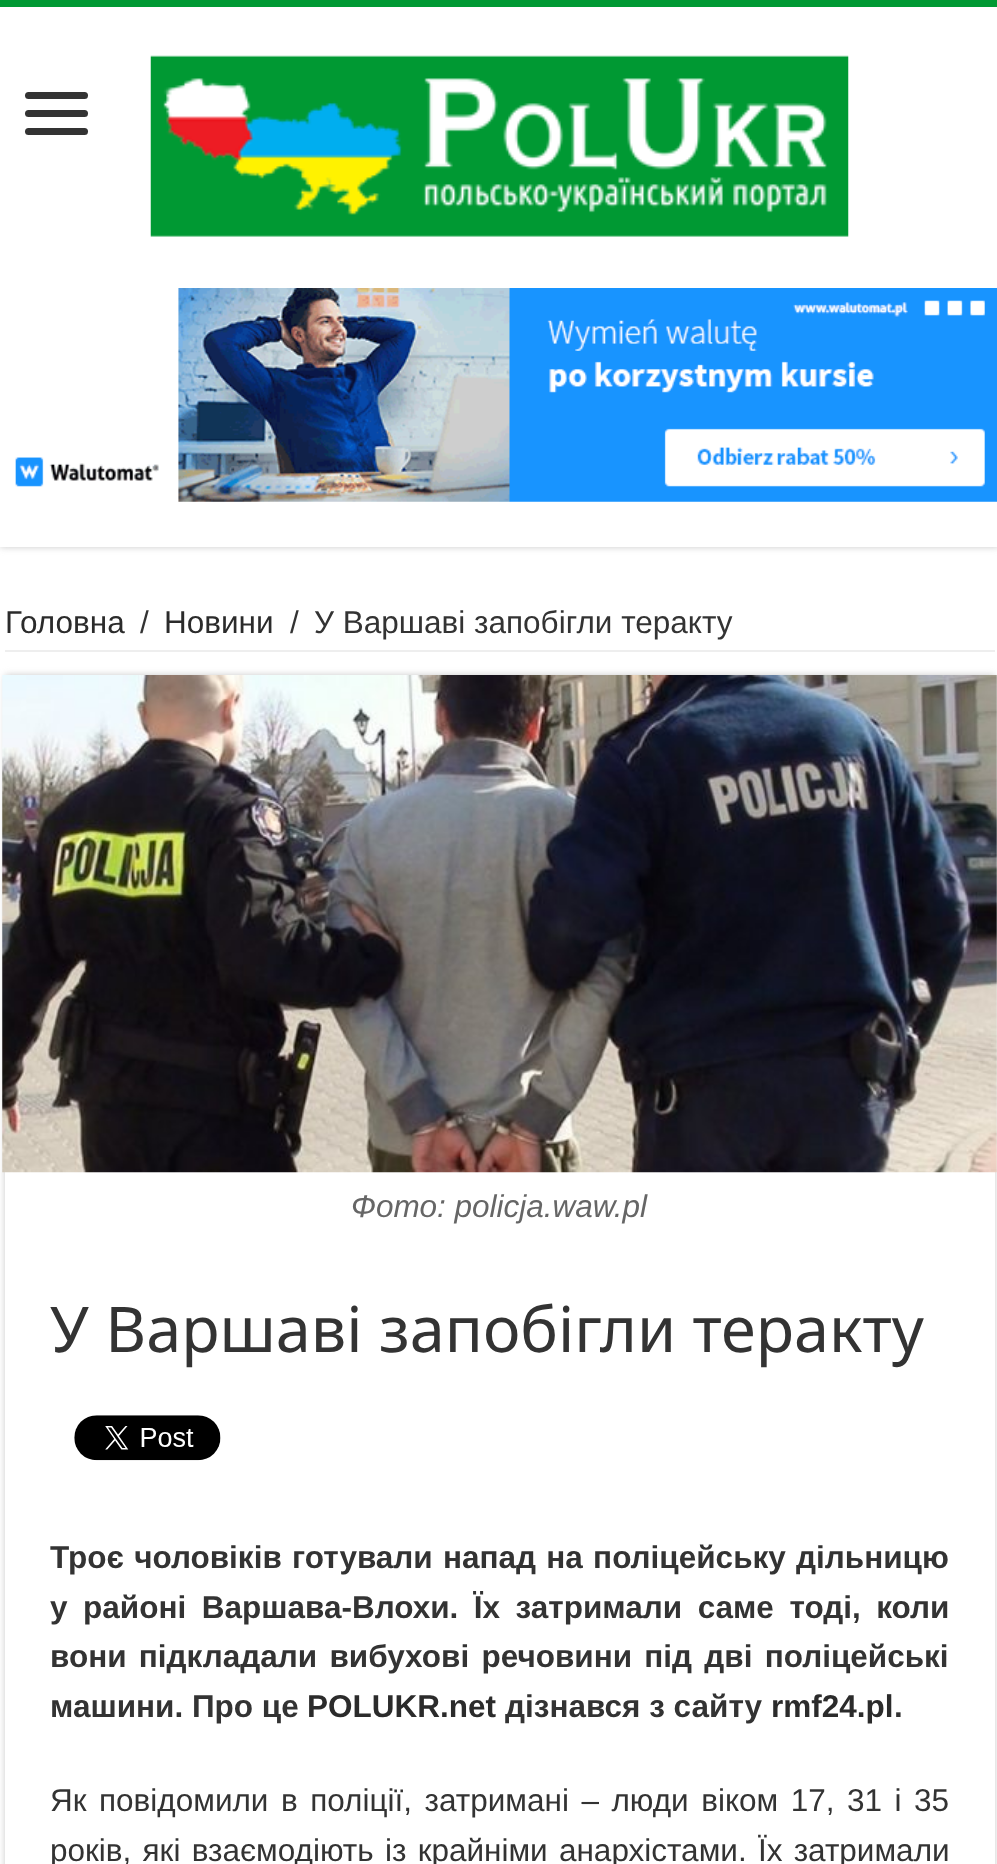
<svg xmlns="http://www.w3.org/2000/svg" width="997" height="1864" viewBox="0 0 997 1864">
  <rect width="100%" height="100%" fill="rgb(255,255,255)"/>
  <rect x="0" y="0" width="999" height="547" fill="rgb(202,202,202)" filter="blur(3.5px)"/>
  <rect x="0" y="7" width="997" height="540" fill="rgb(255,255,255)"/>
  <rect x="0" y="0" width="997" height="7" fill="rgb(0,153,51)"/>
  <rect x="25" y="92" width="63" height="7" rx="3.5" fill="rgb(51,51,51)"/>
  <rect x="25" y="110" width="63" height="7" rx="3.5" fill="rgb(51,51,51)"/>
  <rect x="25" y="128" width="63" height="7" rx="3.5" fill="rgb(51,51,51)"/>
  <image x="150" y="55" width="699" height="182" href="pic1.png"/>
  <image x="15" y="288" width="982" height="214" href="pic2.png"/>
  <rect x="5" y="650" width="990" height="2" fill="rgb(238,238,238)"/>
  <text x="5" y="633" font-family="Liberation Sans" font-size="31.5" fill="rgb(43,43,43)">Головна</text>
  <text x="140" y="633" font-family="Liberation Sans" font-size="31.5" fill="rgb(51,51,51)">/</text>
  <text x="164" y="633" font-family="Liberation Sans" font-size="31.5" fill="rgb(43,43,43)">Новини</text>
  <g font-family="Liberation Sans" font-size="31.5" fill="rgb(51,51,51)">
    <text x="290" y="633">/</text>
    <text x="314" y="633">У Варшаві запобігли теракту</text>
  </g>
  <rect x="5" y="675" width="990" height="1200" fill="rgb(202,202,202)" filter="blur(3.5px)"/>
  <rect x="5" y="1172" width="990" height="692" fill="rgb(255,255,255)"/>
  <image x="2" y="675" width="995" height="498" href="pic3.png"/>
  <text x="351" y="1217" font-family="Liberation Sans" font-size="31.5" font-style="italic" fill="rgb(102,102,102)">Фото: policja.waw.pl</text>
  <text x="50" y="1352" font-family="Noto Sans" font-size="63" fill="rgb(51,51,51)">У Варшаві запобігли теракту</text>
  <image x="74" y="1415" width="147" height="46" href="pic4.png"/>
  <g font-family="Liberation Sans" font-size="31.5" font-weight="bold" fill="rgb(51,51,51)">
    <text>
      <tspan x="50" y="1568" word-spacing="1.5">Троє чоловіків готували напад на поліцейську дільницю</tspan>
      <tspan x="50" y="1618" word-spacing="6.75">у районі Варшава-Влохи. Їх затримали саме тоді, коли</tspan>
      <tspan x="50" y="1667" word-spacing="3.5">вони підкладали вибухові речовини під дві поліцейські</tspan>
      <tspan x="50" y="1717">машини. Про це</tspan>
    </text>
  </g>
  <text x="307" y="1717" font-family="Liberation Sans" font-size="31.5" font-weight="bold" fill="rgb(43,43,43)">POLUKR.net</text>
  <text x="505" y="1717" font-family="Liberation Sans" font-size="31.5" font-weight="bold" fill="rgb(51,51,51)">дізнався з сайту</text>
  <text x="771" y="1717" font-family="Liberation Sans" font-size="31.5" font-weight="bold" fill="rgb(43,43,43)">rmf24.pl</text>
  <text x="894" y="1717" font-family="Liberation Sans" font-size="31.5" font-weight="bold" fill="rgb(51,51,51)">.</text>
  <g font-family="Liberation Sans" font-size="31.5" fill="rgb(51,51,51)">
    <text>
      <tspan x="50" y="1811" word-spacing="3.75">Як повідомили в поліції, затримані – люди віком 17, 31 і 35</tspan>
      <tspan x="50" y="1861" word-spacing="2.5">років, які взаємодіють із крайніми анархістами. Їх затримали</tspan>
    </text>
  </g>
</svg>
